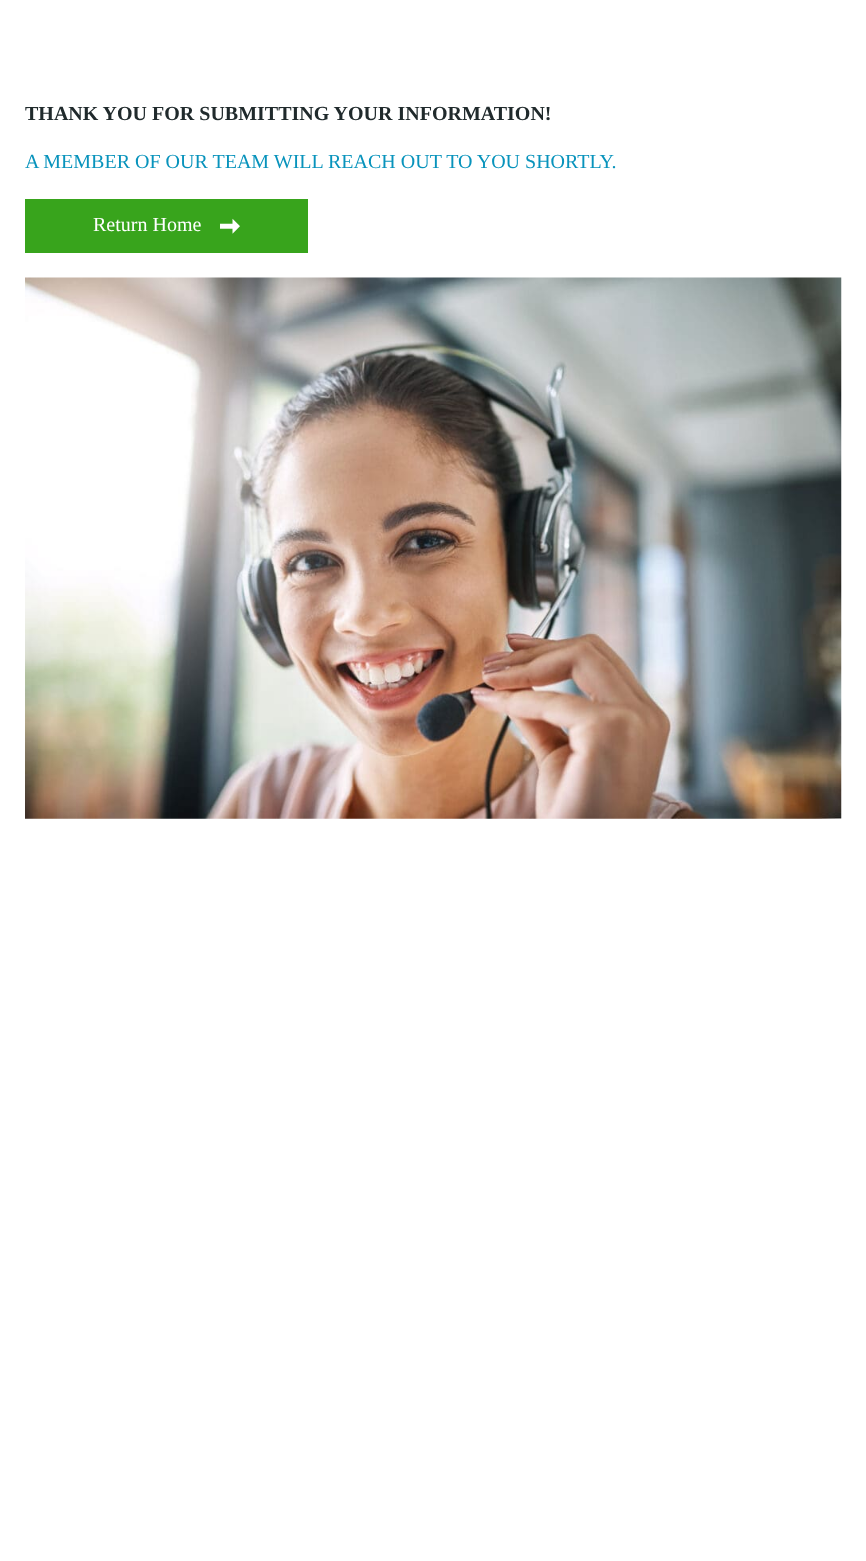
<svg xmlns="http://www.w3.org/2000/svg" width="866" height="1561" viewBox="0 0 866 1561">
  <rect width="100%" height="100%" fill="rgb(255,255,255)"/>
  <text x="25" y="120" font-family="Liberation Serif" font-size="20" font-weight="bold" fill="rgb(32,42,44)">THANK YOU FOR SUBMITTING YOUR INFORMATION!</text>
  <text x="25" y="168" font-family="Liberation Serif" font-size="20" fill="rgb(8,147,188)">A MEMBER OF OUR TEAM WILL REACH OUT TO YOU SHORTLY.</text>
  <rect x="25" y="199" width="283" height="54" fill="rgb(56,164,28)"/>
  <text x="93" y="231" font-family="Liberation Serif" font-size="20" fill="rgb(255,255,255)">Return Home</text>
  <image x="220" y="218" width="20" height="16" href="pic1.png"/>
  <image x="25" y="277" width="817" height="542" href="pic2.png"/>
</svg>
